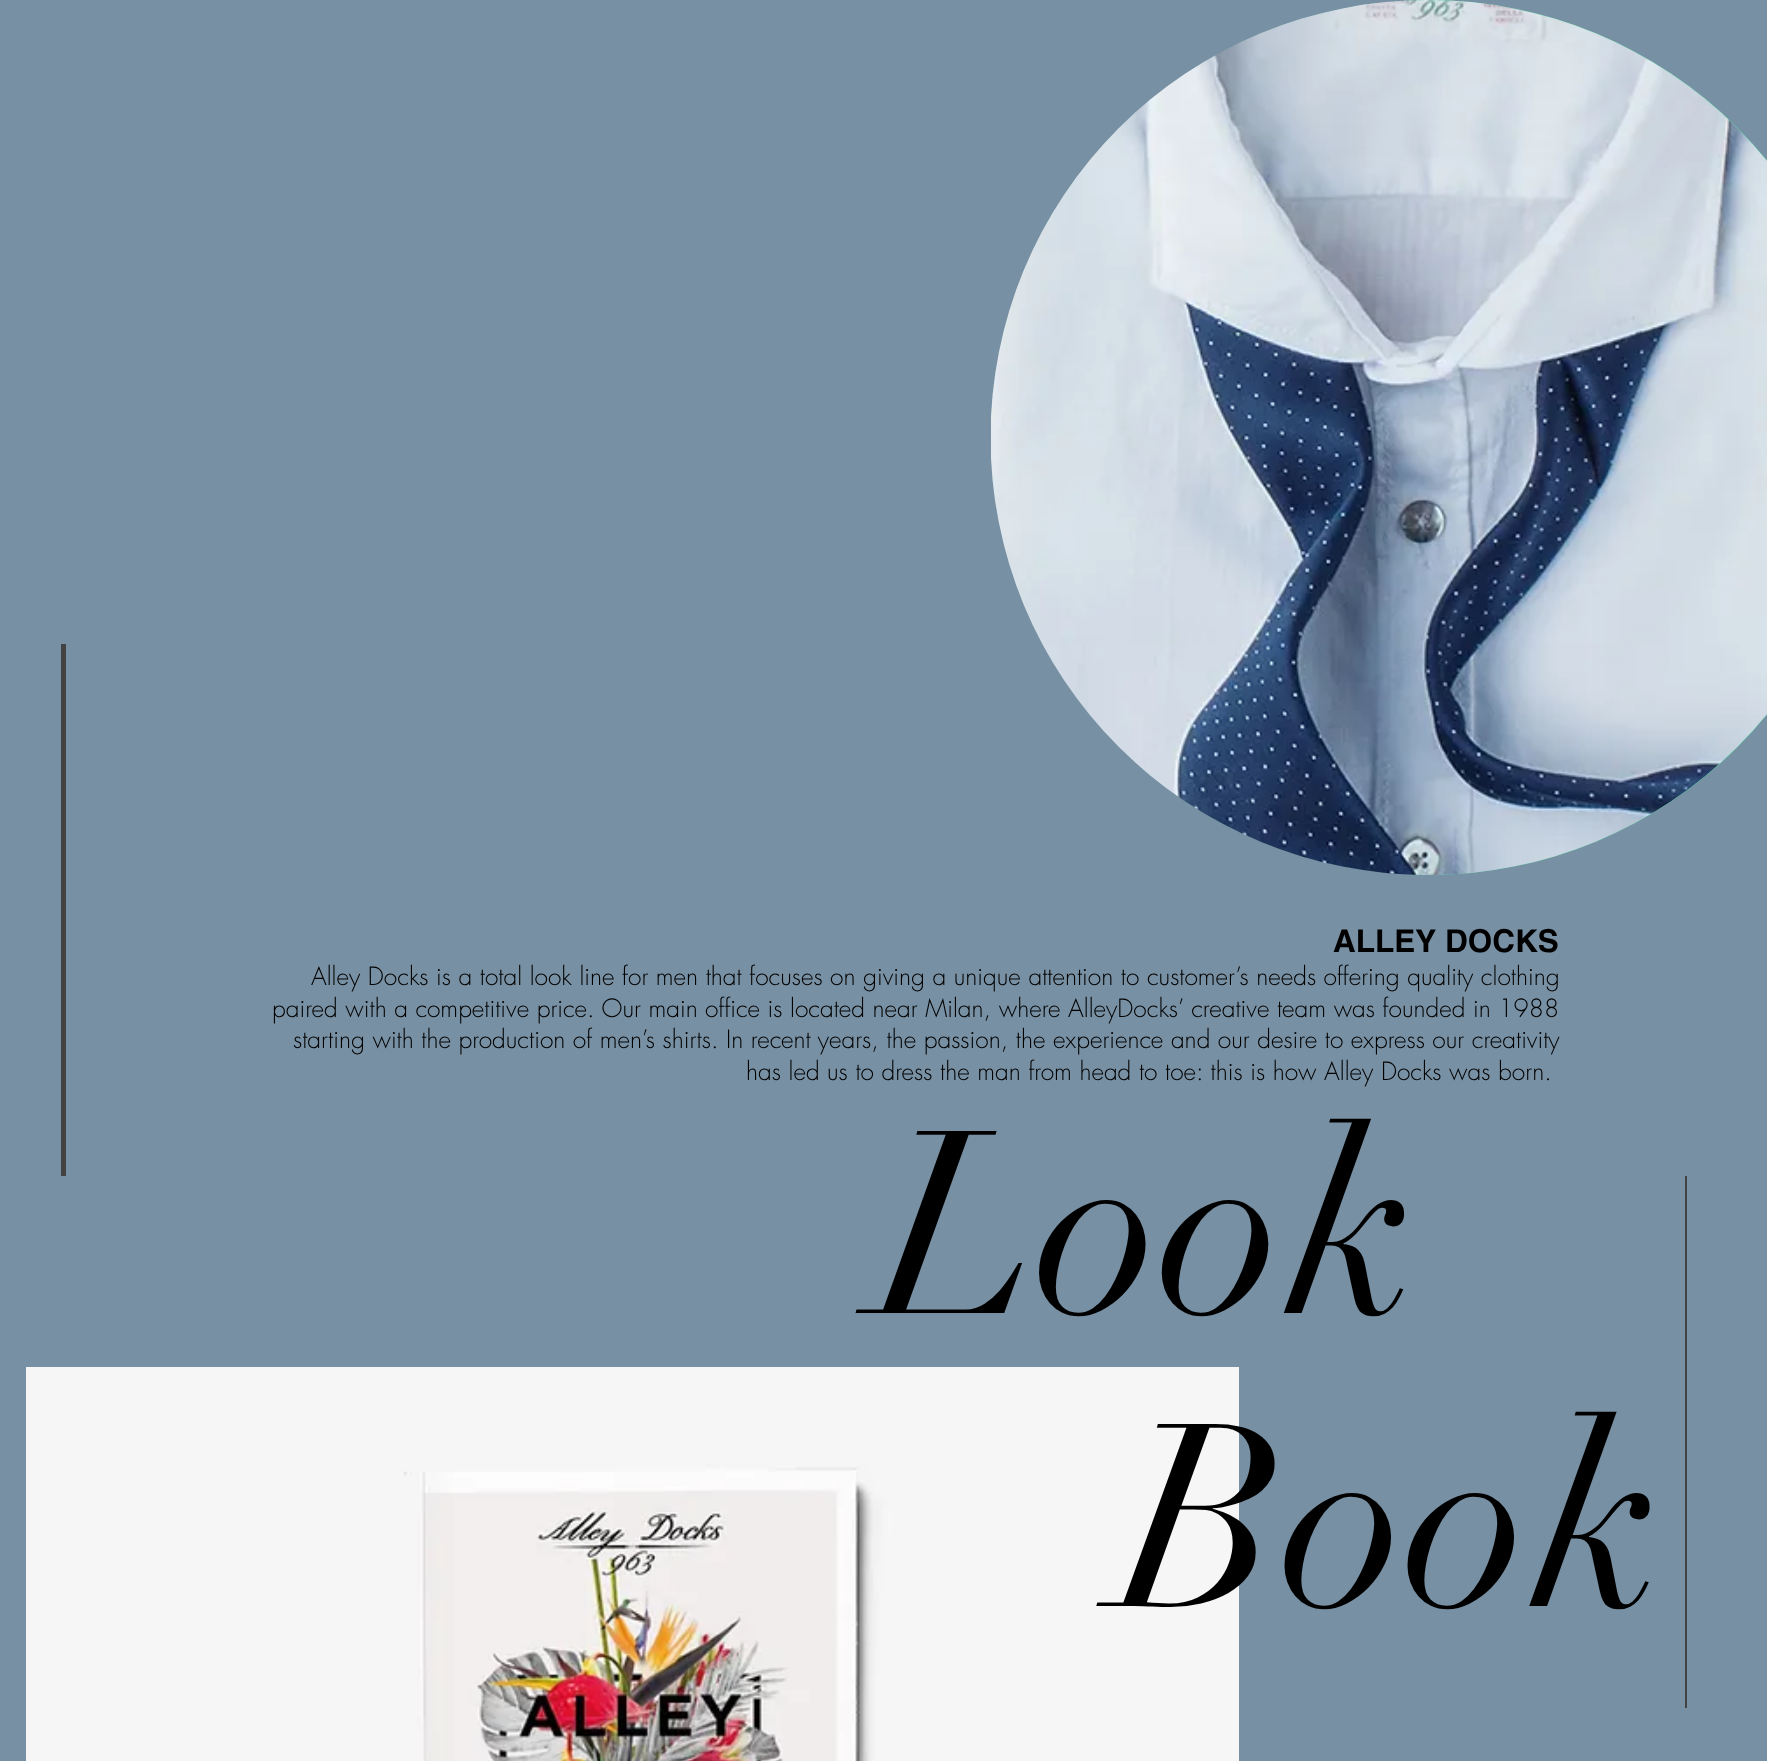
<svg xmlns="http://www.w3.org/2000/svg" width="1767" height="1761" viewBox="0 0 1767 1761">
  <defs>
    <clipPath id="clip1"><rect x="991" y="0" width="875" height="875" rx="437.5"/></clipPath>
  </defs>
  <rect width="100%" height="100%" fill="rgb(120,144,163)"/>
  <rect x="61" y="644" width="5" height="532" fill="rgb(66,66,66)"/>
  <g clip-path="url(#clip1)">
    <path d="M1428.5 0H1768V875H1428.5C1187 875 991 679 991 437.5C991 196 1187 0 1428.5 0Z" fill="rgb(90,219,166)"/>
  </g>
  <image x="991" y="0" width="776" height="875" href="pic1.png"/>
  <text x="1333" y="952" font-family="helvetica" font-size="31.5" font-weight="bold" fill="rgb(0,0,0)">ALLEY DOCKS</text>
  <g font-family="futura" font-size="24.5" font-weight="300" fill="rgb(0,0,0)">
    <text x="311" y="985">Alley Docks is a total look line for men that focuses on giving a unique attention to customer’s needs offering quality clothing</text>
    <text x="272" y="1017">paired with a competitive price. Our main office is located near Milan, where AlleyDocks’ creative team was founded in 1988</text>
    <text x="293" y="1048">starting with the production of men’s shirts. In recent years, the passion, the experience and our desire to express our creativity</text>
    <text x="746" y="1080">has led us to dress the man from head to toe: this is how Alley Docks was born.</text>
  </g>
  <image x="26" y="1367" width="1213" height="394" href="pic2.png"/>
  <g font-family="didot" font-size="255.5" fill="rgb(0,0,0)">
    <text x="878" y="1313">Look</text>
    <text x="1119" y="1606">Book</text>
  </g>
  <rect x="1685" y="1176" width="2" height="532" fill="rgb(66,66,66)"/>
</svg>
